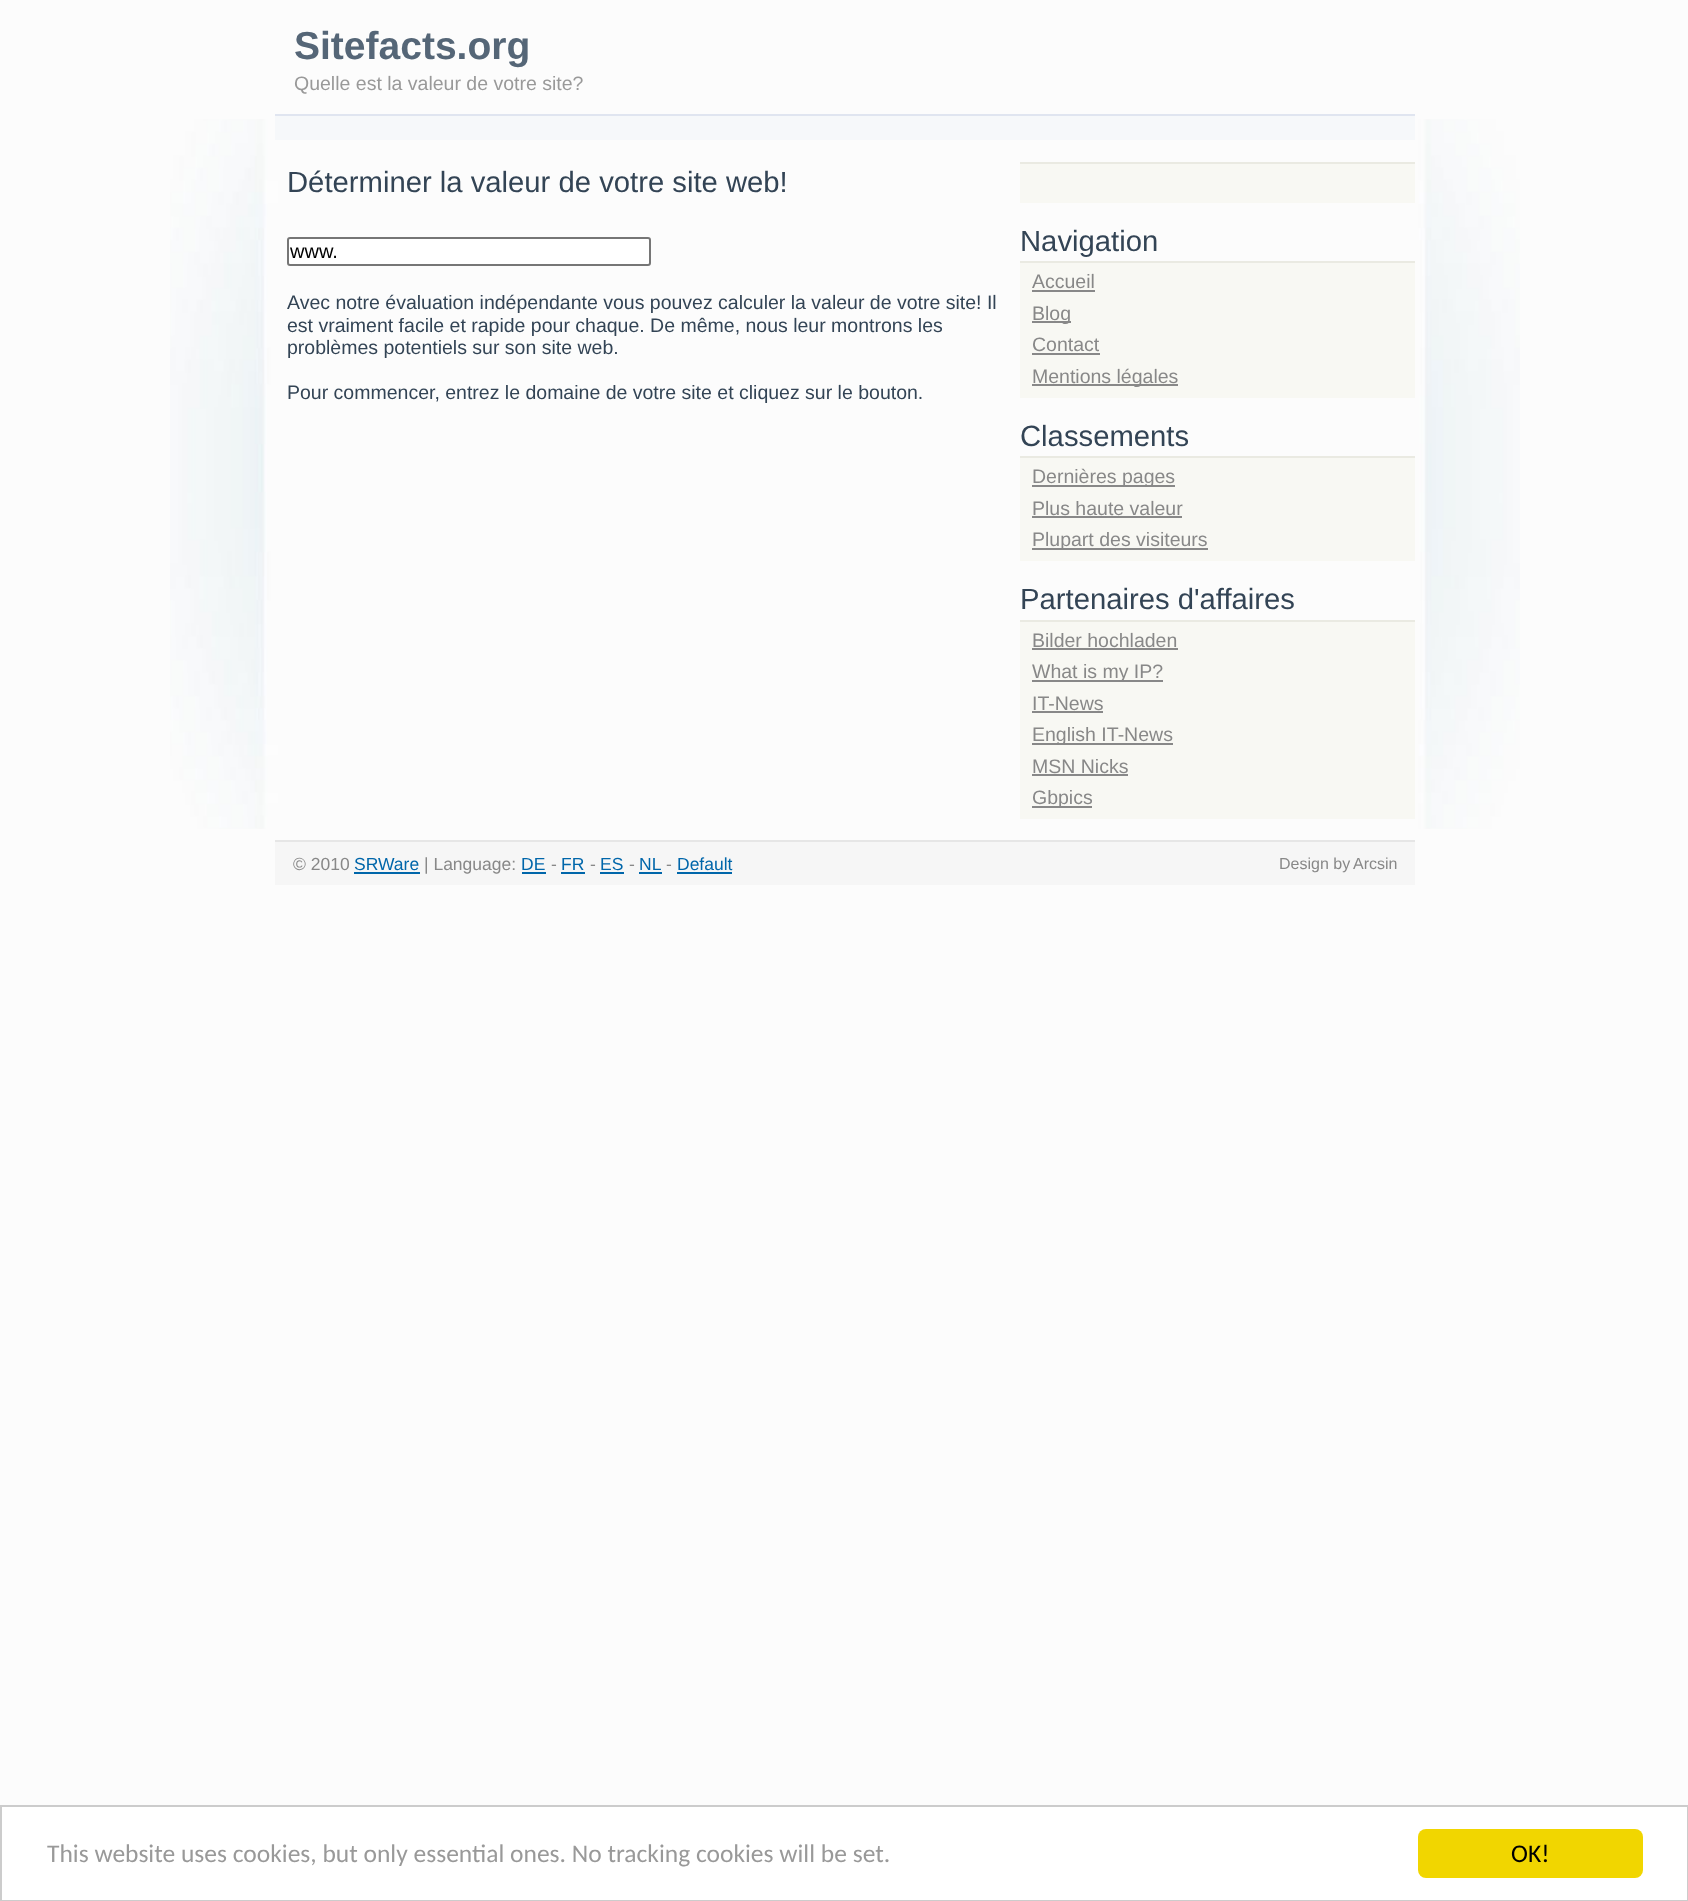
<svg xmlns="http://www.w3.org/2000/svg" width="1688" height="1901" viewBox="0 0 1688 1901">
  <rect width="100%" height="100%" fill="rgb(252,252,252)"/>
  <image x="170" y="119" width="1350" height="710" href="pic1.png"/>
  <text x="294" y="59" font-family="Liberation Sans" font-size="39" font-weight="bold" fill="rgb(85,102,119)">Sitefacts.org</text>
  <text x="294" y="90" font-family="Liberation Sans" font-size="19.5" fill="rgb(153,153,153)">Quelle est la valeur de votre site?</text>
  <rect x="275" y="116" width="1140" height="24" fill="rgb(246,248,250)"/>
  <rect x="275" y="114" width="1140" height="2" fill="rgb(224,229,240)"/>
  <text x="287" y="192" font-family="Liberation Sans" font-size="29.25" fill="rgb(51,68,85)">Déterminer la valeur de votre site web!</text>
  <rect x="288" y="238" width="362" height="27" rx="2" fill="rgb(255,255,255)" stroke="rgb(118,118,118)" stroke-width="2"/>
  <text x="290" y="258" font-family="Liberation Sans" font-size="20" fill="rgb(0,0,0)">www.</text>
  <g font-family="Liberation Sans" font-size="19.5" fill="rgb(51,68,85)">
    <text>
      <tspan x="287" y="309">Avec notre évaluation indépendante vous pouvez calculer la valeur de votre site! Il</tspan>
      <tspan x="287" y="332">est vraiment facile et rapide pour chaque. De même, nous leur montrons les</tspan>
      <tspan x="287" y="354">problèmes potentiels sur son site web.</tspan>
    </text>
    <text x="287" y="399">Pour commencer, entrez le domaine de votre site et cliquez sur le bouton.</text>
  </g>
  <rect x="1020" y="164" width="395" height="39" fill="rgb(248,248,243)"/>
  <rect x="1020" y="162" width="395" height="2" fill="rgb(234,234,226)"/>
  <text x="1020" y="251" font-family="Liberation Sans" font-size="29.25" fill="rgb(51,68,85)">Navigation</text>
  <rect x="1020" y="263" width="395" height="135" fill="rgb(248,248,243)"/>
  <rect x="1020" y="261" width="395" height="2" fill="rgb(234,234,226)"/>
  <text x="1032" y="288" font-family="Liberation Sans" font-size="19.5" fill="rgb(136,136,136)">Accueil</text>
  <rect x="1032" y="290" width="63" height="2" fill="rgb(136,136,136)"/>
  <rect x="1032" y="321" width="39" height="2" fill="rgb(136,136,136)"/>
  <g font-family="Liberation Sans" font-size="19.5" fill="rgb(136,136,136)">
    <text>
      <tspan x="1032" y="320">Blog</tspan>
      <tspan x="1032" y="351">Contact</tspan>
    </text>
  </g>
  <rect x="1032" y="353" width="68" height="2" fill="rgb(136,136,136)"/>
  <rect x="1032" y="384" width="146" height="2" fill="rgb(136,136,136)"/>
  <text x="1032" y="383" font-family="Liberation Sans" font-size="19.5" fill="rgb(136,136,136)">Mentions légales</text>
  <text x="1020" y="446" font-family="Liberation Sans" font-size="29.25" fill="rgb(51,68,85)">Classements</text>
  <rect x="1020" y="458" width="395" height="103" fill="rgb(248,248,243)"/>
  <rect x="1020" y="456" width="395" height="2" fill="rgb(234,234,226)"/>
  <rect x="1032" y="485" width="143" height="2" fill="rgb(136,136,136)"/>
  <g font-family="Liberation Sans" font-size="19.5" fill="rgb(136,136,136)">
    <text>
      <tspan x="1032" y="483">Dernières pages</tspan>
      <tspan x="1032" y="515">Plus haute valeur</tspan>
    </text>
  </g>
  <rect x="1032" y="516" width="150" height="2" fill="rgb(136,136,136)"/>
  <rect x="1032" y="548" width="176" height="2" fill="rgb(136,136,136)"/>
  <text x="1032" y="546" font-family="Liberation Sans" font-size="19.5" fill="rgb(136,136,136)">Plupart des visiteurs</text>
  <text x="1020" y="609" font-family="Liberation Sans" font-size="29.25" fill="rgb(51,68,85)">Partenaires d'affaires</text>
  <rect x="1020" y="622" width="395" height="197" fill="rgb(248,248,243)"/>
  <rect x="1020" y="620" width="395" height="2" fill="rgb(234,234,226)"/>
  <text x="1032" y="647" font-family="Liberation Sans" font-size="19.5" fill="rgb(136,136,136)">Bilder hochladen</text>
  <rect x="1032" y="648" width="146" height="2" fill="rgb(136,136,136)"/>
  <rect x="1032" y="680" width="131" height="2" fill="rgb(136,136,136)"/>
  <g font-family="Liberation Sans" font-size="19.5" fill="rgb(136,136,136)">
    <text>
      <tspan x="1032" y="678">What is my IP?</tspan>
      <tspan x="1032" y="710">IT-News</tspan>
    </text>
  </g>
  <rect x="1032" y="711" width="71" height="2" fill="rgb(136,136,136)"/>
  <rect x="1032" y="743" width="141" height="2" fill="rgb(136,136,136)"/>
  <g font-family="Liberation Sans" font-size="19.5" fill="rgb(136,136,136)">
    <text>
      <tspan x="1032" y="741">English IT-News</tspan>
      <tspan x="1032" y="773">MSN Nicks</tspan>
    </text>
  </g>
  <rect x="1032" y="774" width="96" height="2" fill="rgb(136,136,136)"/>
  <rect x="1032" y="806" width="60" height="2" fill="rgb(136,136,136)"/>
  <text x="1032" y="804" font-family="Liberation Sans" font-size="19.5" fill="rgb(136,136,136)">Gbpics</text>
  <rect x="275" y="842" width="1140" height="43" fill="rgb(246,246,246)"/>
  <rect x="275" y="840" width="1140" height="2" fill="rgb(230,230,230)"/>
  <text x="293" y="870" font-family="Liberation Sans" font-size="17.5" fill="rgb(136,136,136)">© 2010</text>
  <text x="354" y="870" font-family="Liberation Sans" font-size="17.5" fill="rgb(0,102,170)">SRWare</text>
  <rect x="354" y="872" width="66" height="2" fill="rgb(0,102,170)"/>
  <text x="424" y="870" font-family="Liberation Sans" font-size="17.5" fill="rgb(136,136,136)">| Language:</text>
  <text x="521" y="870" font-family="Liberation Sans" font-size="17.5" fill="rgb(0,102,170)">DE</text>
  <rect x="522" y="872" width="24" height="2" fill="rgb(0,102,170)"/>
  <text x="551" y="870" font-family="Liberation Sans" font-size="17.5" fill="rgb(136,136,136)">-</text>
  <text x="561" y="870" font-family="Liberation Sans" font-size="17.5" fill="rgb(0,102,170)">FR</text>
  <rect x="561" y="872" width="24" height="2" fill="rgb(0,102,170)"/>
  <text x="590" y="870" font-family="Liberation Sans" font-size="17.5" fill="rgb(136,136,136)">-</text>
  <text x="600" y="870" font-family="Liberation Sans" font-size="17.5" fill="rgb(0,102,170)">ES</text>
  <rect x="600" y="872" width="24" height="2" fill="rgb(0,102,170)"/>
  <text x="629" y="870" font-family="Liberation Sans" font-size="17.5" fill="rgb(136,136,136)">-</text>
  <text x="639" y="870" font-family="Liberation Sans" font-size="17.5" fill="rgb(0,102,170)">NL</text>
  <rect x="639" y="872" width="23" height="2" fill="rgb(0,102,170)"/>
  <text x="666" y="870" font-family="Liberation Sans" font-size="17.5" fill="rgb(136,136,136)">-</text>
  <text x="677" y="870" font-family="Liberation Sans" font-size="17.5" fill="rgb(0,102,170)">Default</text>
  <rect x="677" y="872" width="55" height="2" fill="rgb(0,102,170)"/>
  <g font-family="Liberation Sans" font-size="16" fill="rgb(136,136,136)">
    <text x="1279" y="869">Design by</text>
    <text x="1353" y="869">Arcsin</text>
  </g>
  <rect x="1" y="1806" width="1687" height="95" fill="rgb(255,255,255)" stroke="rgb(204,204,204)" stroke-width="2"/>
  <text x="47" y="1862" font-family="Carlito" font-size="25.5" fill="rgb(153,153,153)">This website uses cookies, but only essential ones. No tracking cookies will be set.</text>
  <rect x="1418" y="1829" width="225" height="49" rx="8" fill="rgb(241,214,0)"/>
  <text x="1511" y="1862" font-family="Carlito" font-size="25.5" fill="rgb(0,0,0)">OK!</text>
</svg>
